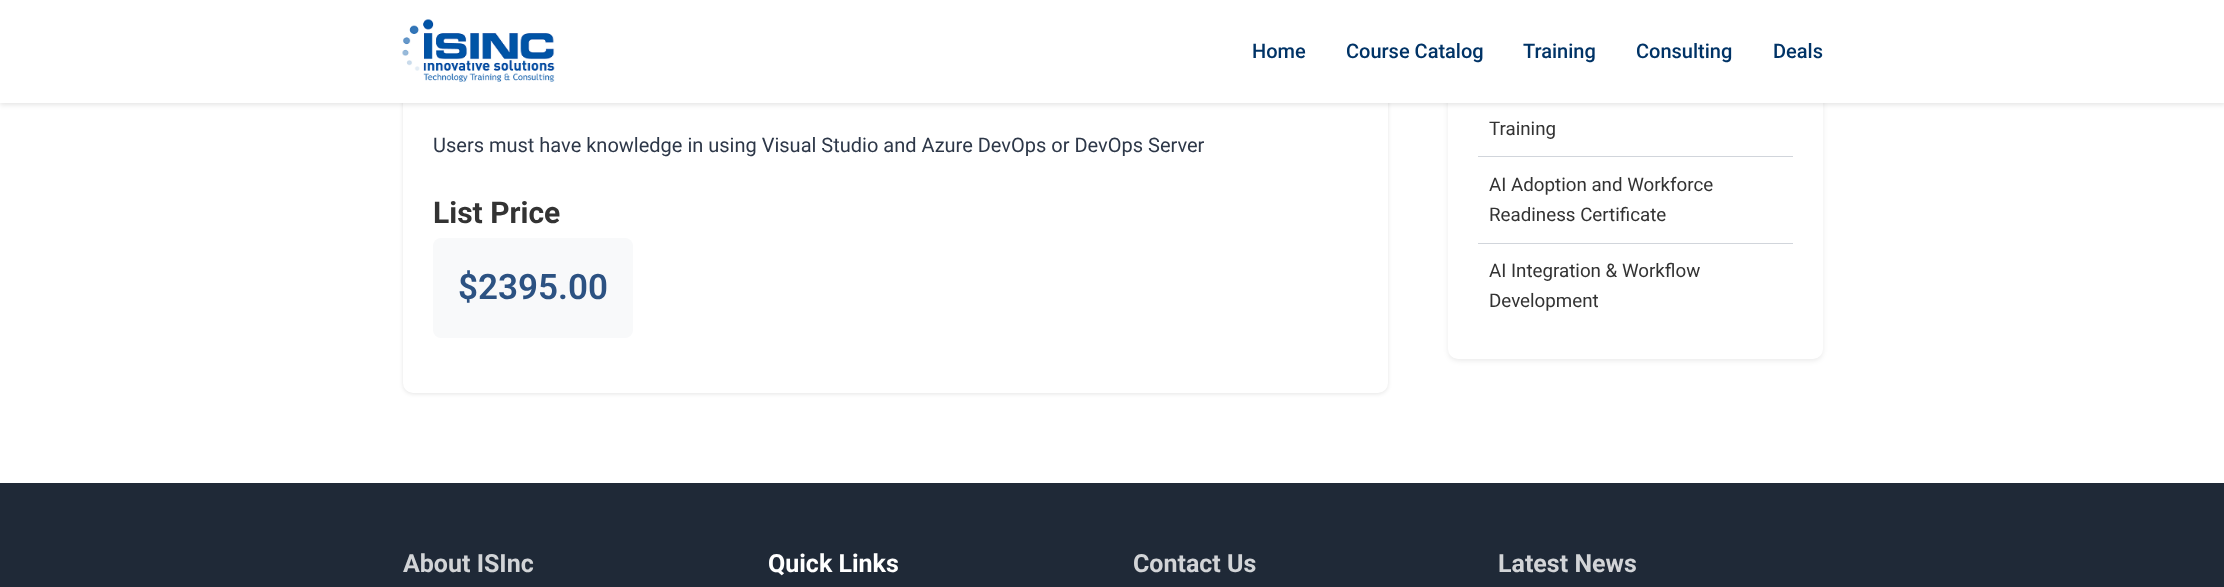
<svg xmlns="http://www.w3.org/2000/svg" width="2224" height="587" viewBox="0 0 2224 587">
  <rect width="100%" height="100%" fill="rgb(255,255,255)"/>
  <rect x="403" y="-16" width="985" height="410" rx="10" fill="rgba(0,0,0,0.1)" filter="blur(2px)"/>
  <rect x="403" y="-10" width="985" height="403" rx="10" fill="rgb(255,255,255)"/>
  <rect x="1448" y="-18" width="375" height="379" rx="10" fill="rgba(0,0,0,0.08)" filter="blur(2.5px)"/>
  <rect x="1448" y="-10" width="375" height="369" rx="10" fill="rgb(255,255,255)"/>
  <rect x="0" y="3" width="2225" height="102" fill="rgba(0,0,0,0.1)" filter="blur(2.5px)"/>
  <rect x="0" y="0" width="2224" height="103" fill="rgb(255,255,255)"/>
  <image x="402" y="19" width="153" height="63" href="pic1.png"/>
  <g font-family="Roboto" font-size="20" font-weight="500" fill="rgb(0,51,102)">
    <text x="1252" y="58">Home</text>
    <text x="1346" y="58">Course Catalog</text>
    <text x="1523" y="58">Training</text>
    <text x="1636" y="58">Consulting</text>
    <text x="1773" y="58">Deals</text>
  </g>
  <text x="433" y="152" font-family="Roboto" font-size="20" fill="rgb(45,55,72)">Users must have knowledge in using Visual Studio and Azure DevOps or DevOps Server</text>
  <text x="433" y="223" font-family="Roboto" font-size="30" font-weight="bold" fill="rgb(51,51,51)">List Price</text>
  <rect x="433" y="238" width="200" height="100" rx="8" fill="rgb(248,249,250)"/>
  <text x="458" y="299" font-family="Roboto" font-size="35" font-weight="600" fill="rgb(44,82,130)">$2395.00</text>
  <rect x="1478" y="156" width="315" height="1" fill="rgb(209,213,219)"/>
  <text x="1489" y="135" font-family="Roboto" font-size="18.75" fill="rgb(51,51,51)">Training</text>
  <rect x="1478" y="243" width="315" height="1" fill="rgb(209,213,219)"/>
  <g font-family="Roboto" font-size="18.75" fill="rgb(51,51,51)">
    <text>
      <tspan x="1489" y="191">AI Adoption and Workforce</tspan>
      <tspan x="1489" y="221">Readiness Certificate</tspan>
    </text>
    <text>
      <tspan x="1489" y="277">AI Integration &amp; Workflow</tspan>
      <tspan x="1489" y="307">Development</tspan>
    </text>
  </g>
  <rect x="0" y="483" width="2224" height="104" fill="rgb(31,41,55)"/>
  <text x="403" y="572" font-family="Roboto" font-size="25" font-weight="bold" fill="rgb(210,212,215)">About ISInc</text>
  <text x="768" y="572" font-family="Roboto" font-size="25" font-weight="bold" fill="rgb(255,255,255)">Quick Links</text>
  <g font-family="Roboto" font-size="25" font-weight="bold" fill="rgb(210,212,215)">
    <text x="1133" y="572">Contact Us</text>
    <text x="1498" y="572">Latest News</text>
  </g>
</svg>
